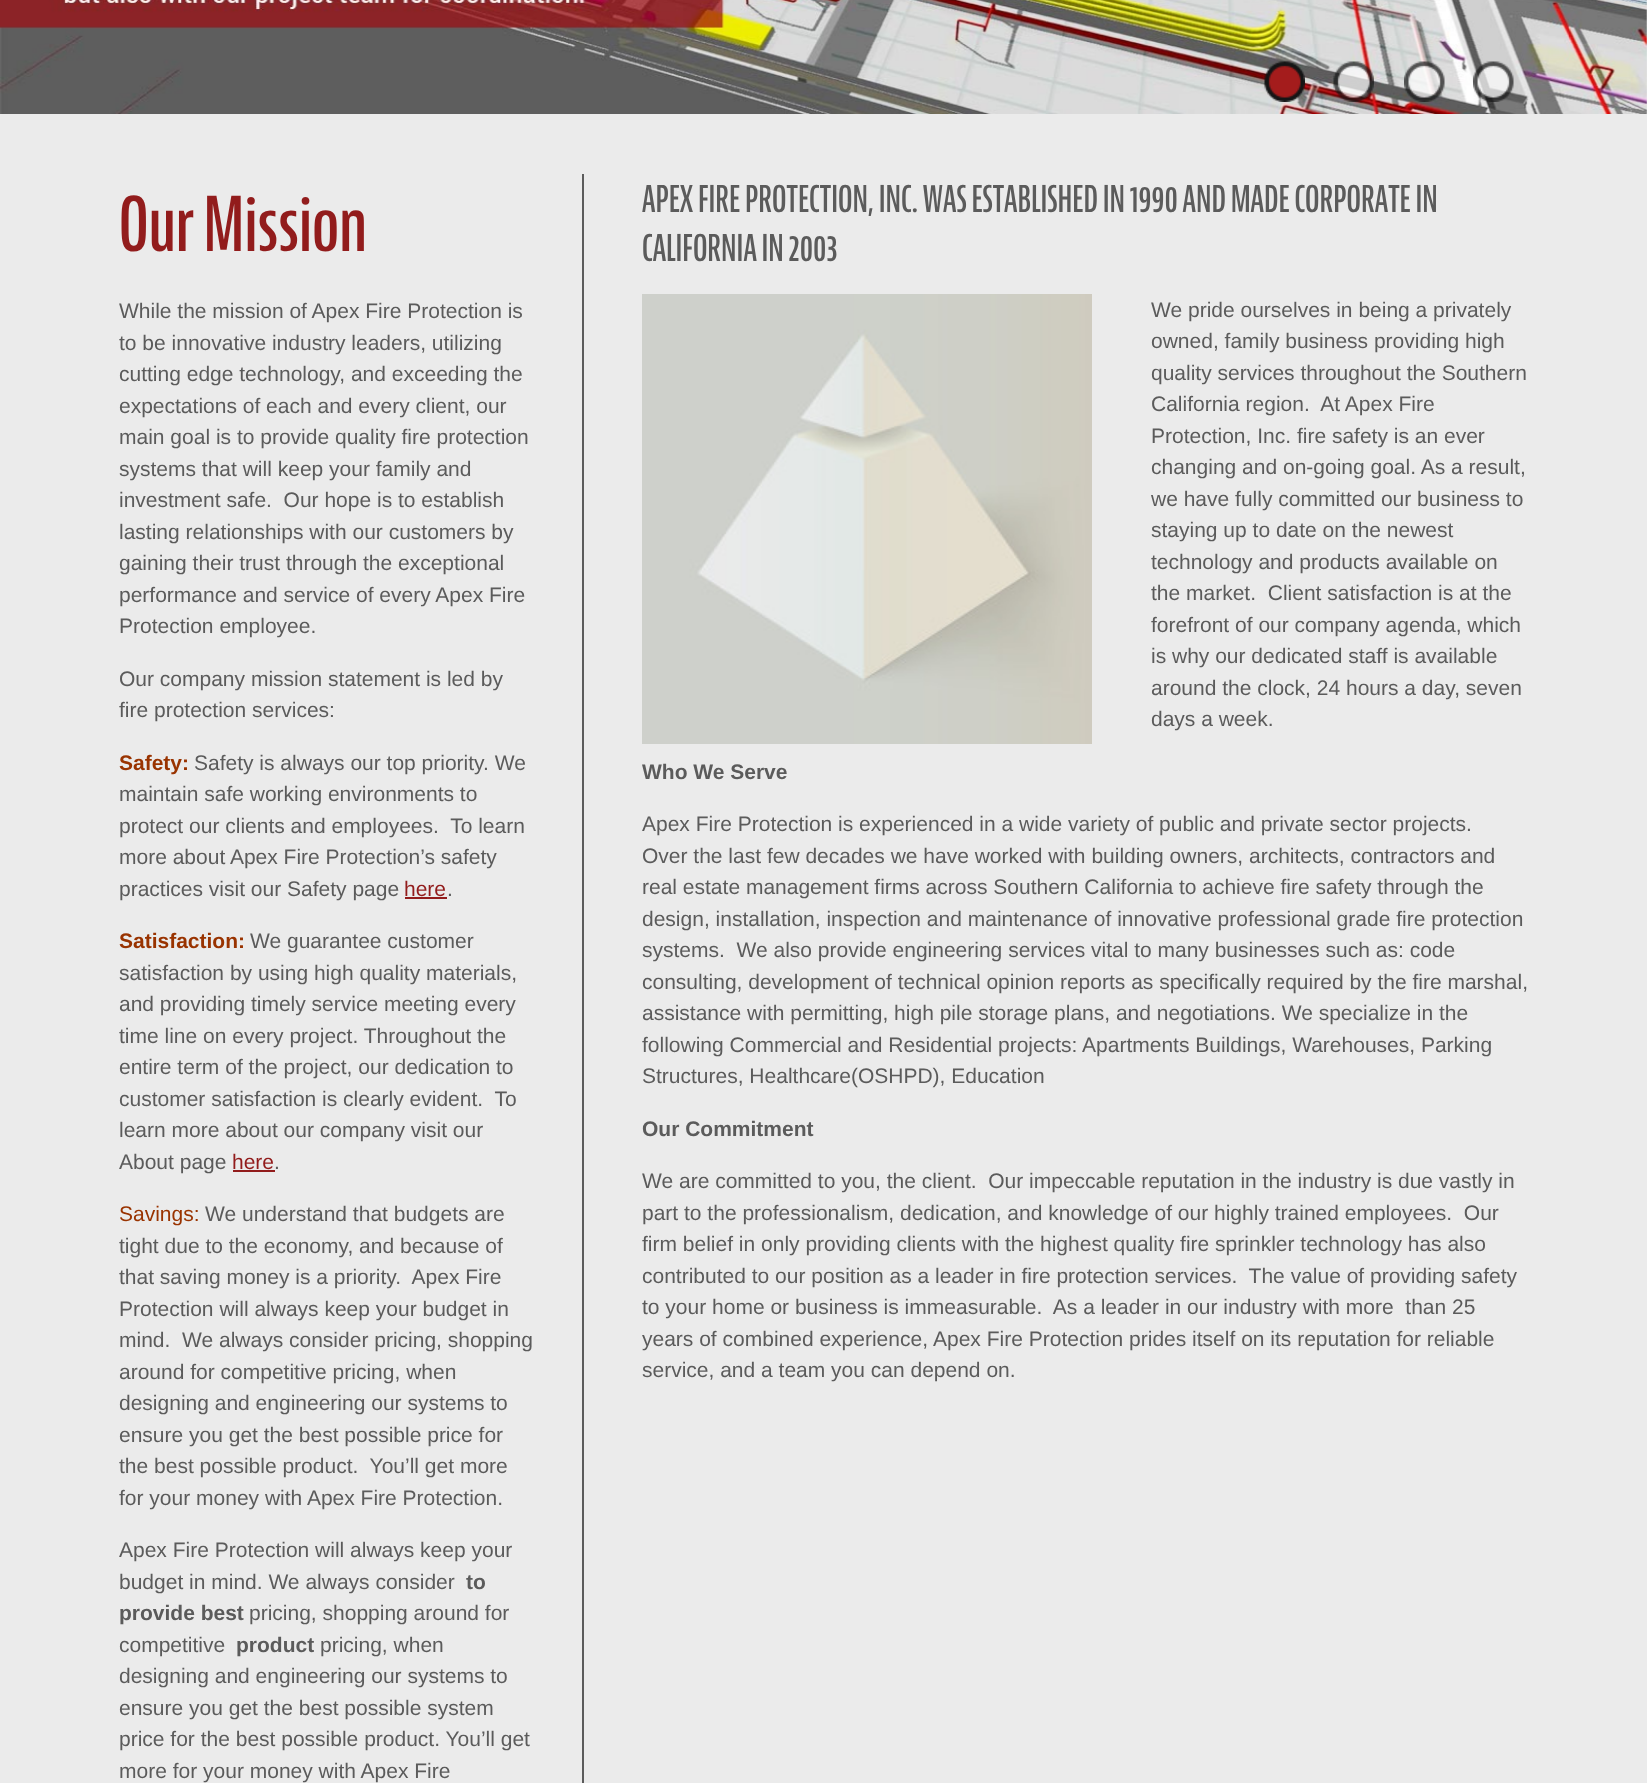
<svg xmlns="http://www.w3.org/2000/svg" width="1647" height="1783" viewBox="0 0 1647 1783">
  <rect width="100%" height="100%" fill="rgb(235,235,235)"/>
  <image x="0" y="0" width="1647" height="114" href="pic1.png"/>
  <image x="1264" y="61" width="41" height="41" href="pic2.png"/>
  <image x="1333" y="61" width="41" height="41" href="pic3.png"/>
  <image x="1404" y="61" width="41" height="41" href="pic4.png"/>
  <image x="1473" y="61" width="41" height="41" href="pic5.png"/>
  <rect x="582" y="174" width="2" height="1609" fill="rgb(91,91,91)"/>
  <text x="119" y="251" font-family="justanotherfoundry" font-size="73.5" font-weight="bold" fill="rgb(146,28,28)">Our Mission</text>
  <g font-family="Liberation Sans" font-size="21" fill="rgb(91,91,91)">
    <text xml:space="preserve"><tspan x="119" y="318">While the mission of Apex Fire Protection is</tspan><tspan x="119" y="350">to be innovative industry leaders, utilizing</tspan><tspan x="119" y="381">cutting edge technology, and exceeding the</tspan><tspan x="119" y="413">expectations of each and every client, our</tspan><tspan x="119" y="444">main goal is to provide quality fire protection</tspan><tspan x="119" y="476">systems that will keep your family and</tspan><tspan x="119" y="507">investment safe.  Our hope is to establish</tspan><tspan x="119" y="539">lasting relationships with our customers by</tspan><tspan x="119" y="570">gaining their trust through the exceptional</tspan><tspan x="119" y="602">performance and service of every Apex Fire</tspan><tspan x="119" y="633">Protection employee.</tspan></text>
    <text>
      <tspan x="119" y="686">Our company mission statement is led by</tspan>
      <tspan x="119" y="717">fire protection services:</tspan>
    </text>
  </g>
  <text x="119" y="770" font-family="Liberation Sans" font-size="21" font-weight="bold" fill="rgb(153,51,0)">Safety:</text>
  <g font-family="Liberation Sans" font-size="21" fill="rgb(91,91,91)">
    <text x="194" y="770">Safety is always our top priority. We</text>
    <text xml:space="preserve"><tspan x="119" y="801">maintain safe working environments to</tspan><tspan x="119" y="833">protect our clients and employees.  To learn</tspan><tspan x="119" y="864">more about Apex Fire Protection’s safety</tspan><tspan x="119" y="896">practices visit our Safety page</tspan></text>
  </g>
  <text x="404" y="896" font-family="Liberation Sans" font-size="21" fill="rgb(146,28,28)">here</text>
  <rect x="405" y="897" width="42" height="2" fill="rgb(146,28,28)"/>
  <text x="447" y="896" font-family="Liberation Sans" font-size="21" fill="rgb(91,91,91)">.</text>
  <text x="119" y="948" font-family="Liberation Sans" font-size="21" font-weight="bold" fill="rgb(153,51,0)">Satisfaction:</text>
  <g font-family="Liberation Sans" font-size="21" fill="rgb(91,91,91)">
    <text x="250" y="948">We guarantee customer</text>
    <text xml:space="preserve"><tspan x="119" y="980">satisfaction by using high quality materials,</tspan><tspan x="119" y="1011">and providing timely service meeting every</tspan><tspan x="119" y="1043">time line on every project. Throughout the</tspan><tspan x="119" y="1074">entire term of the project, our dedication to</tspan><tspan x="119" y="1106">customer satisfaction is clearly evident.  To</tspan><tspan x="119" y="1137">learn more about our company visit our</tspan><tspan x="119" y="1169">About page</tspan></text>
  </g>
  <text x="232" y="1169" font-family="Liberation Sans" font-size="21" fill="rgb(146,28,28)">here</text>
  <rect x="233" y="1170" width="42" height="2" fill="rgb(146,28,28)"/>
  <text x="274" y="1169" font-family="Liberation Sans" font-size="21" fill="rgb(91,91,91)">.</text>
  <text x="119" y="1221" font-family="Liberation Sans" font-size="21" fill="rgb(153,51,0)">Savings:</text>
  <g font-family="Liberation Sans" font-size="21" fill="rgb(91,91,91)">
    <text x="205" y="1221">We understand that budgets are</text>
    <text xml:space="preserve"><tspan x="119" y="1253">tight due to the economy, and because of</tspan><tspan x="119" y="1284">that saving money is a priority.  Apex Fire</tspan><tspan x="119" y="1316">Protection will always keep your budget in</tspan><tspan x="119" y="1347">mind.  We always consider pricing, shopping</tspan><tspan x="119" y="1379">around for competitive pricing, when</tspan><tspan x="119" y="1410">designing and engineering our systems to</tspan><tspan x="119" y="1442">ensure you get the best possible price for</tspan><tspan x="119" y="1473">the best possible product.  You’ll get more</tspan><tspan x="119" y="1505">for your money with Apex Fire Protection.</tspan></text>
    <text>
      <tspan x="119" y="1557">Apex Fire Protection will always keep your</tspan>
      <tspan x="119" y="1589">budget in mind. We always consider</tspan>
    </text>
  </g>
  <g font-family="Liberation Sans" font-size="21" font-weight="bold" fill="rgb(91,91,91)">
    <text x="466" y="1589">to</text>
    <text x="119" y="1620">provide best</text>
  </g>
  <g font-family="Liberation Sans" font-size="21" fill="rgb(91,91,91)">
    <text x="249" y="1620">pricing, shopping around for</text>
    <text x="119" y="1652">competitive</text>
  </g>
  <text x="236" y="1652" font-family="Liberation Sans" font-size="21" font-weight="bold" fill="rgb(91,91,91)">product</text>
  <g font-family="Liberation Sans" font-size="21" fill="rgb(91,91,91)">
    <text x="320" y="1652">pricing, when</text>
    <text>
      <tspan x="119" y="1683">designing and engineering our systems to</tspan>
      <tspan x="119" y="1715">ensure you get the best possible system</tspan>
      <tspan x="119" y="1746">price for the best possible product. You’ll get</tspan>
      <tspan x="119" y="1778">more for your money with Apex Fire</tspan>
    </text>
  </g>
  <g font-family="justanotherfoundry" font-size="36" font-weight="bold" fill="rgb(91,91,91)">
    <text>
      <tspan x="642" y="212">APEX FIRE PROTECTION, INC. WAS ESTABLISHED IN 1990 AND MADE CORPORATE IN</tspan>
      <tspan x="642" y="261">CALIFORNIA IN 2003</tspan>
    </text>
  </g>
  <image x="642" y="294" width="450" height="450" href="pic6.png"/>
  <g font-family="Liberation Sans" font-size="21" fill="rgb(91,91,91)">
    <text xml:space="preserve"><tspan x="1151" y="317">We pride ourselves in being a privately</tspan><tspan x="1151" y="348">owned, family business providing high</tspan><tspan x="1151" y="380">quality services throughout the Southern</tspan><tspan x="1151" y="411">California region.  At Apex Fire</tspan><tspan x="1151" y="443">Protection, Inc. fire safety is an ever</tspan><tspan x="1151" y="474">changing and on-going goal. As a result,</tspan><tspan x="1151" y="506">we have fully committed our business to</tspan><tspan x="1151" y="537">staying up to date on the newest</tspan><tspan x="1151" y="569">technology and products available on</tspan><tspan x="1151" y="600">the market.  Client satisfaction is at the</tspan><tspan x="1151" y="632">forefront of our company agenda, which</tspan><tspan x="1151" y="663">is why our dedicated staff is available</tspan><tspan x="1151" y="695">around the clock, 24 hours a day, seven</tspan><tspan x="1151" y="726">days a week.</tspan></text>
  </g>
  <text x="642" y="779" font-family="Liberation Sans" font-size="21" font-weight="bold" fill="rgb(91,91,91)">Who We Serve</text>
  <g font-family="Liberation Sans" font-size="21" fill="rgb(91,91,91)">
    <text xml:space="preserve"><tspan x="642" y="831">Apex Fire Protection is experienced in a wide variety of public and private sector projects.</tspan><tspan x="642" y="863">Over the last few decades we have worked with building owners, architects, contractors and</tspan><tspan x="642" y="894">real estate management firms across Southern California to achieve fire safety through the</tspan><tspan x="642" y="926">design, installation, inspection and maintenance of innovative professional grade fire protection</tspan><tspan x="642" y="957">systems.  We also provide engineering services vital to many businesses such as: code</tspan><tspan x="642" y="989">consulting, development of technical opinion reports as specifically required by the fire marshal,</tspan><tspan x="642" y="1020">assistance with permitting, high pile storage plans, and negotiations. We specialize in the</tspan><tspan x="642" y="1052">following Commercial and Residential projects: Apartments Buildings, Warehouses, Parking</tspan><tspan x="642" y="1083">Structures, Healthcare(OSHPD), Education</tspan></text>
  </g>
  <text x="642" y="1136" font-family="Liberation Sans" font-size="21" font-weight="bold" fill="rgb(91,91,91)">Our Commitment</text>
  <g font-family="Liberation Sans" font-size="21" fill="rgb(91,91,91)">
    <text xml:space="preserve"><tspan x="642" y="1188">We are committed to you, the client.  Our impeccable reputation in the industry is due vastly in</tspan><tspan x="642" y="1220">part to the professionalism, dedication, and knowledge of our highly trained employees.  Our</tspan><tspan x="642" y="1251">firm belief in only providing clients with the highest quality fire sprinkler technology has also</tspan><tspan x="642" y="1283">contributed to our position as a leader in fire protection services.  The value of providing safety</tspan><tspan x="642" y="1314">to your home or business is immeasurable.  As a leader in our industry with more  than 25</tspan><tspan x="642" y="1346">years of combined experience,</tspan></text>
    <text x="933" y="1346">Apex Fire Protection prides itself on its reputation for reliable</text>
    <text x="642" y="1377">service, and a team you can depend on.</text>
  </g>
</svg>
